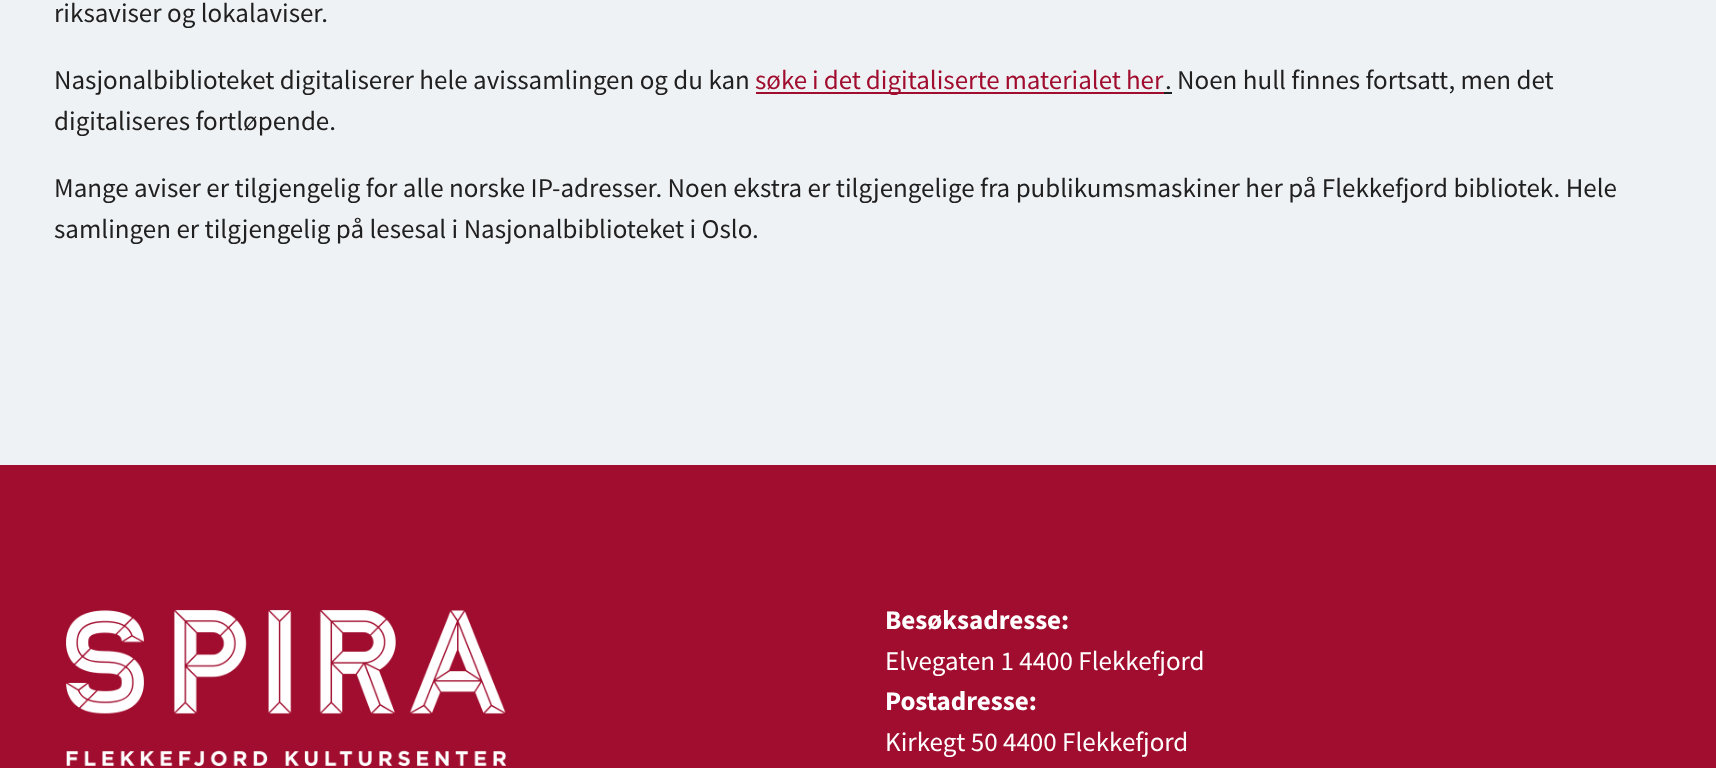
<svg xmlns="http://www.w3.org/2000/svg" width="1716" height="768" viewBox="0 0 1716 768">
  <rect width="100%" height="100%" fill="rgb(239,242,245)"/>
  <g font-family="Source Sans Pro" font-size="27" fill="rgb(32,32,32)">
    <text x="54" y="22">riksaviser og lokalaviser.</text>
    <text x="54" y="89">Nasjonalbiblioteket digitaliserer hele avissamlingen og du kan</text>
  </g>
  <rect x="756" y="92" width="408" height="2" fill="rgb(161,13,46)"/>
  <text x="755" y="89" word-spacing="-0.5" font-family="Source Sans Pro" font-size="27" fill="rgb(161,13,46)">søke i det digitaliserte materialet her</text>
  <rect x="1164" y="92" width="8" height="2" fill="rgb(32,32,32)"/>
  <g font-family="Source Sans Pro" font-size="27" fill="rgb(32,32,32)">
    <text x="1165" y="89">. Noen hull finnes fortsatt, men det</text>
    <text x="54" y="130">digitaliseres fortløpende.</text>
    <text>
      <tspan x="54" y="197">Mange aviser er tilgjengelig for alle norske IP-adresser. Noen ekstra er tilgjengelige fra publikumsmaskiner her på Flekkefjord bibliotek. Hele</tspan>
      <tspan x="54" y="238">samlingen er tilgjengelig på lesesal i Nasjonalbiblioteket i Oslo.</tspan>
    </text>
  </g>
  <rect x="0" y="465" width="1716" height="303" fill="rgb(161,13,46)"/>
  <image x="66" y="610" width="440" height="156" href="pic1.png"/>
  <text x="885" y="629" font-family="Source Sans Pro" font-size="27" font-weight="bold" fill="rgb(255,255,255)">Besøksadresse:</text>
  <text x="885" y="670" font-family="Source Sans Pro" font-size="27" fill="rgb(255,255,255)">Elvegaten 1 4400 Flekkefjord</text>
  <text x="885" y="710" font-family="Source Sans Pro" font-size="27" font-weight="bold" fill="rgb(255,255,255)">Postadresse:</text>
  <text x="885" y="751" font-family="Source Sans Pro" font-size="27" fill="rgb(255,255,255)">Kirkegt 50 4400 Flekkefjord</text>
</svg>
